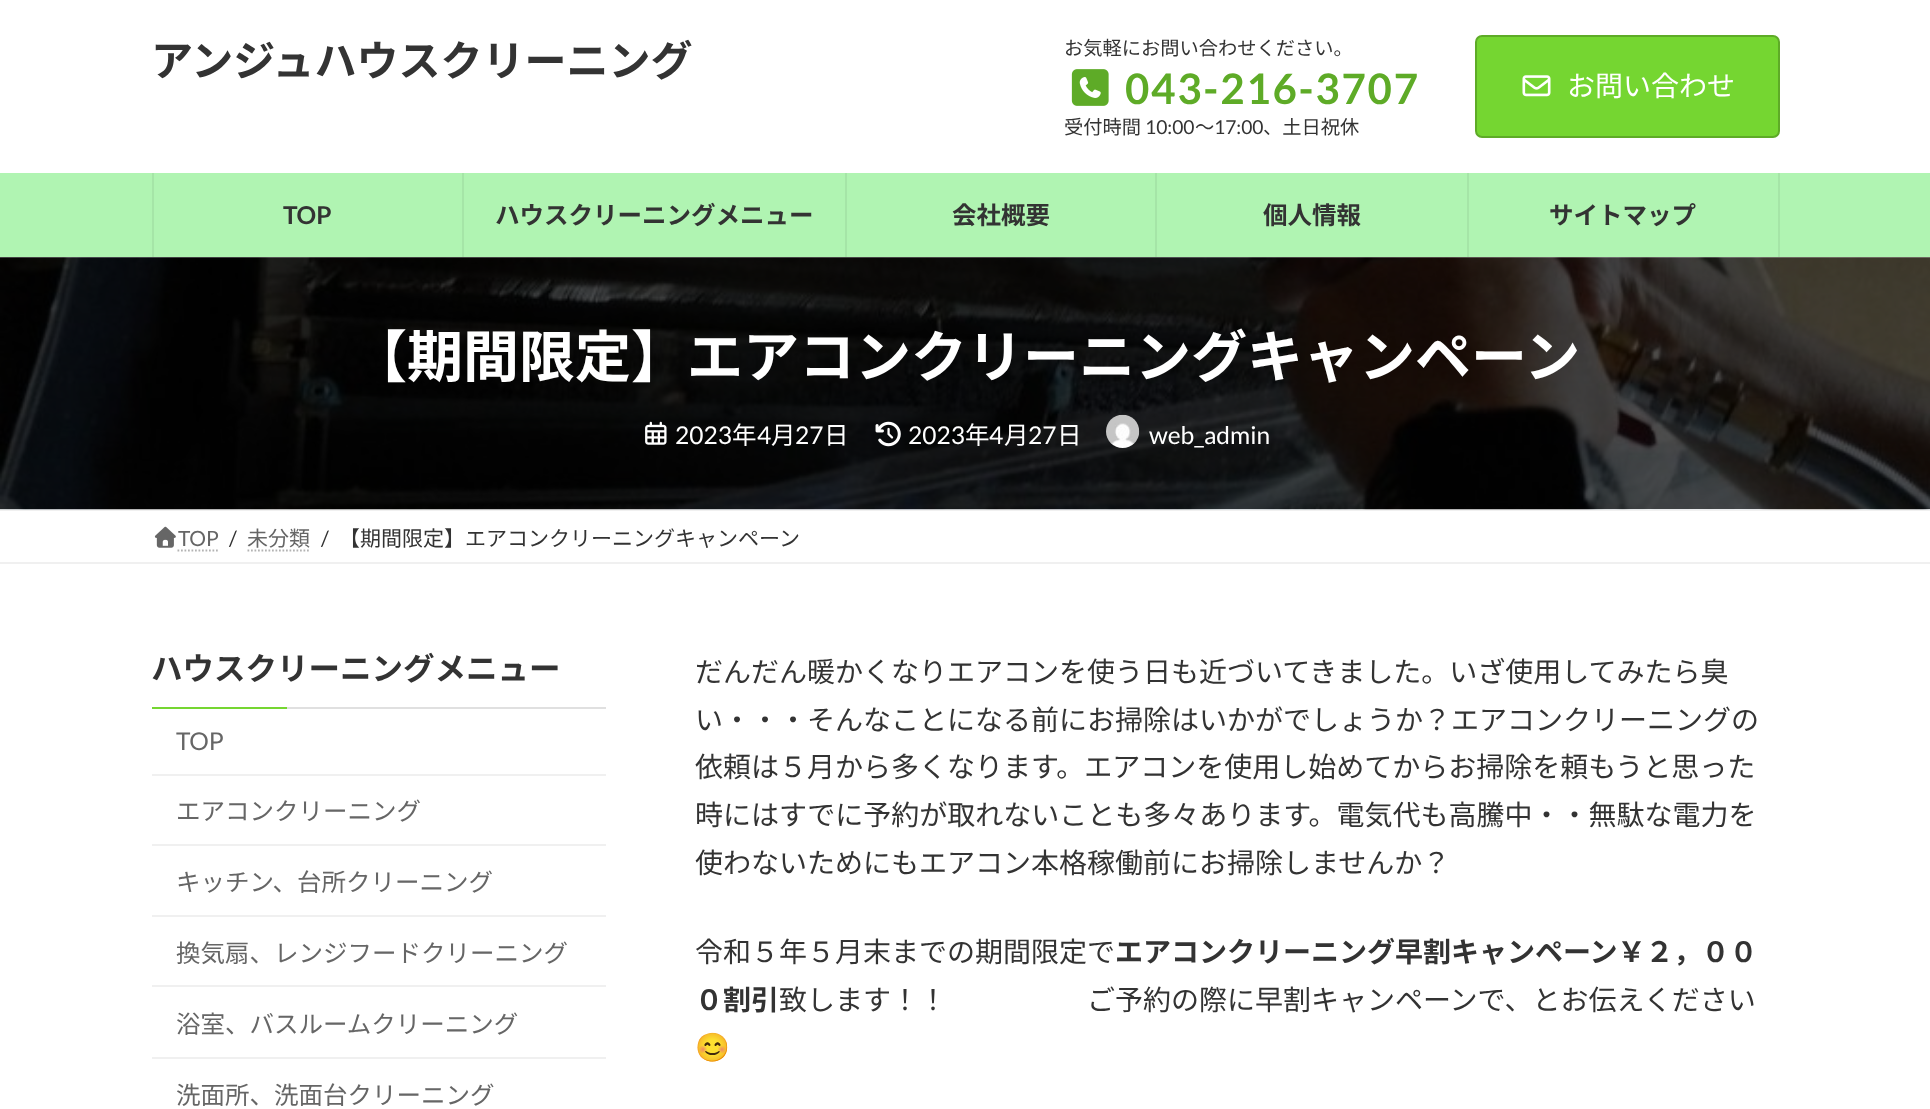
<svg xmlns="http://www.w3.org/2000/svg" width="1930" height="1109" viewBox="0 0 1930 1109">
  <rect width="100%" height="100%" fill="rgb(255,255,255)"/>
  <text x="151" y="76" font-family="Noto Sans JP" font-size="42" font-weight="bold" fill="rgb(51,51,51)">アンジュハウスクリーニング</text>
  <text x="1064" y="55" font-family="Noto Sans JP" font-size="19.25" fill="rgb(51,51,51)">お気軽にお問い合わせください。</text>
  <image x="1071" y="69" width="38" height="37" href="pic1.png"/>
  <text x="1125" y="104" font-family="Lato" font-size="42" font-weight="bold" letter-spacing="1.75" fill="rgb(94,171,39)">043-216-3707</text>
  <text x="1064" y="134" font-family="Noto Sans JP" font-size="19.25" fill="rgb(51,51,51)">受付時間</text>
  <text x="1145" y="134" font-family="Lato" font-size="19.25" fill="rgb(51,51,51)">10:00</text>
  <text x="1195" y="134" font-family="Noto Sans JP" font-size="19.25" fill="rgb(51,51,51)">～</text>
  <text x="1214" y="134" font-family="Lato" font-size="19.25" fill="rgb(51,51,51)">17:00</text>
  <text x="1263" y="134" font-family="Noto Sans JP" font-size="19.25" fill="rgb(51,51,51)">、土日祝休</text>
  <rect x="1476" y="36" width="303" height="101" rx="6" fill="rgb(117,214,49)" stroke="rgb(94,171,39)" stroke-width="2"/>
  <image x="1522" y="75" width="29" height="22" href="pic2.png"/>
  <text x="1567" y="96" font-family="Noto Sans JP" font-size="28" fill="rgb(255,255,255)">お問い合わせ</text>
  <rect x="0" y="173" width="1930" height="84" fill="rgb(176,244,178)"/>
  <rect x="462" y="173" width="2" height="84" fill="rgb(165,229,167)"/>
  <rect x="152" y="173" width="2" height="84" fill="rgb(165,229,167)"/>
  <text x="283" y="224" font-family="Lato" font-size="24.5" font-weight="bold" fill="rgb(51,51,51)">TOP</text>
  <rect x="845" y="173" width="2" height="84" fill="rgb(165,229,167)"/>
  <text x="495" y="224" font-family="Noto Sans JP" font-size="24.5" font-weight="bold" fill="rgb(51,51,51)">ハウスクリーニングメニュー</text>
  <rect x="1155" y="173" width="2" height="84" fill="rgb(165,229,167)"/>
  <text x="952" y="224" font-family="Noto Sans JP" font-size="24.5" font-weight="bold" fill="rgb(51,51,51)">会社概要</text>
  <rect x="1467" y="173" width="2" height="84" fill="rgb(165,229,167)"/>
  <text x="1263" y="224" font-family="Noto Sans JP" font-size="24.5" font-weight="bold" fill="rgb(51,51,51)">個人情報</text>
  <rect x="1778" y="173" width="2" height="84" fill="rgb(165,229,167)"/>
  <text x="1549" y="224" font-family="Noto Sans JP" font-size="24.5" font-weight="bold" fill="rgb(51,51,51)">サイトマップ</text>
  <rect x="0" y="509" width="1930" height="2" fill="rgb(240,240,240)"/>
  <image x="0" y="257" width="1930" height="253" href="pic3.png"/>
  <text x="351" y="377" font-family="Noto Sans JP" font-size="56" font-weight="bold" fill="rgb(255,255,255)">【期間限定】エアコンクリーニングキャンペーン</text>
  <image x="645" y="421" width="22" height="24" href="pic4.png"/>
  <text x="675" y="444" font-family="Lato" font-size="24.5" fill="rgb(255,255,255)">2023</text>
  <text x="732" y="444" font-family="Noto Sans JP" font-size="24.5" fill="rgb(255,255,255)">年</text>
  <text x="757" y="444" font-family="Lato" font-size="24.5" fill="rgb(255,255,255)">4</text>
  <text x="771" y="444" font-family="Noto Sans JP" font-size="24.5" fill="rgb(255,255,255)">月</text>
  <text x="795" y="444" font-family="Lato" font-size="24.5" fill="rgb(255,255,255)">27</text>
  <text x="824" y="444" font-family="Noto Sans JP" font-size="24.5" fill="rgb(255,255,255)">日</text>
  <image x="875" y="421" width="26" height="26" href="pic5.png"/>
  <text x="908" y="444" font-family="Lato" font-size="24.5" fill="rgb(255,255,255)">2023</text>
  <text x="965" y="444" font-family="Noto Sans JP" font-size="24.5" fill="rgb(255,255,255)">年</text>
  <text x="989" y="444" font-family="Lato" font-size="24.5" fill="rgb(255,255,255)">4</text>
  <text x="1004" y="444" font-family="Noto Sans JP" font-size="24.5" fill="rgb(255,255,255)">月</text>
  <text x="1028" y="444" font-family="Lato" font-size="24.5" fill="rgb(255,255,255)">27</text>
  <text x="1057" y="444" font-family="Noto Sans JP" font-size="24.5" fill="rgb(255,255,255)">日</text>
  <image x="1106" y="414" width="34" height="34" href="pic6.png"/>
  <text x="1149" y="444" font-family="Lato" font-size="24.5" fill="rgb(255,255,255)">web_admin</text>
  <rect x="0" y="562" width="1930" height="2" fill="rgb(240,240,240)"/>
  <image x="154" y="526" width="22" height="22" href="pic7.png"/>
  <text x="178" y="546" font-family="Lato" font-size="21" fill="rgb(102,102,102)">TOP</text>
  <path d="M177.5 550.5H218.5" fill="none" stroke="rgb(179,179,179)" stroke-width="1.8" stroke-dasharray="1.75 1.75"/>
  <text x="229" y="546" font-family="Lato" font-size="21" fill="rgb(51,51,51)">/</text>
  <text x="247" y="546" font-family="Noto Sans JP" font-size="21" fill="rgb(102,102,102)">未分類</text>
  <path d="M247.5 550.5H310.5" fill="none" stroke="rgb(179,179,179)" stroke-width="1.8" stroke-dasharray="1.75 1.75"/>
  <text x="321" y="546" font-family="Lato" font-size="21" fill="rgb(51,51,51)">/</text>
  <text x="339" y="546" font-family="Noto Sans JP" font-size="21" fill="rgb(51,51,51)">【期間限定】エアコンクリーニングキャンペーン</text>
  <rect x="287" y="707" width="319" height="2" fill="rgb(224,224,224)"/>
  <text x="151" y="680" font-family="Noto Sans JP" font-size="31.5" font-weight="bold" fill="rgb(51,51,51)">ハウスクリーニングメニュー</text>
  <rect x="152" y="707" width="135" height="2" fill="rgb(117,214,49)"/>
  <rect x="152" y="774" width="454" height="2" fill="rgb(240,240,240)"/>
  <text x="176" y="750" font-family="Lato" font-size="24.5" fill="rgb(102,102,102)">TOP</text>
  <rect x="152" y="844" width="454" height="2" fill="rgb(240,240,240)"/>
  <text x="176" y="820" font-family="Noto Sans JP" font-size="24.5" fill="rgb(102,102,102)">エアコンクリーニング</text>
  <rect x="152" y="915" width="454" height="2" fill="rgb(240,240,240)"/>
  <text x="176" y="891" font-family="Noto Sans JP" font-size="24.5" fill="rgb(102,102,102)">キッチン、台所クリーニング</text>
  <rect x="152" y="985" width="454" height="2" fill="rgb(240,240,240)"/>
  <text x="176" y="962" font-family="Noto Sans JP" font-size="24.5" fill="rgb(102,102,102)">換気扇、レンジフードクリーニング</text>
  <rect x="152" y="1057" width="454" height="2" fill="rgb(240,240,240)"/>
  <g font-family="Noto Sans JP" font-size="24.5" fill="rgb(102,102,102)">
    <text x="176" y="1033">浴室、バスルームクリーニング</text>
    <text x="176" y="1104">洗面所、洗面台クリーニング</text>
  </g>
  <g font-family="Noto Sans JP" font-size="28" fill="rgb(51,51,51)">
    <text>
      <tspan x="695" y="682">だんだん暖かくなりエアコンを使う日も近づいてきました。いざ使用してみたら臭</tspan>
      <tspan x="695" y="730">い・・・そんなことになる前にお掃除はいかがでしょうか？エアコンクリーニングの</tspan>
      <tspan x="695" y="777">依頼は５月から多くなります。エアコンを使用し始めてからお掃除を頼もうと思った</tspan>
      <tspan x="695" y="825">時にはすでに予約が取れないことも多々あります。電気代も高騰中・・無駄な電力を</tspan>
      <tspan x="695" y="873">使わないためにもエアコン本格稼働前にお掃除しませんか？</tspan>
    </text>
    <text x="695" y="962">令和５年５月末までの期間限定で</text>
  </g>
  <g font-family="Noto Sans JP" font-size="28" font-weight="bold" fill="rgb(51,51,51)">
    <text x="1115" y="962">エアコンクリーニング早割キャンペーン￥２，００</text>
    <text x="695" y="1010">０割引</text>
  </g>
  <text x="779" y="1010" font-family="Noto Sans JP" font-size="28" fill="rgb(51,51,51)">致します！！　　　　　ご予約の際に早割キャンペーンで、とお伝えください</text>
  <text x="695" y="1057" font-family="Noto Color Emoji" font-size="28" fill="rgb(51,51,51)">😊</text>
</svg>
